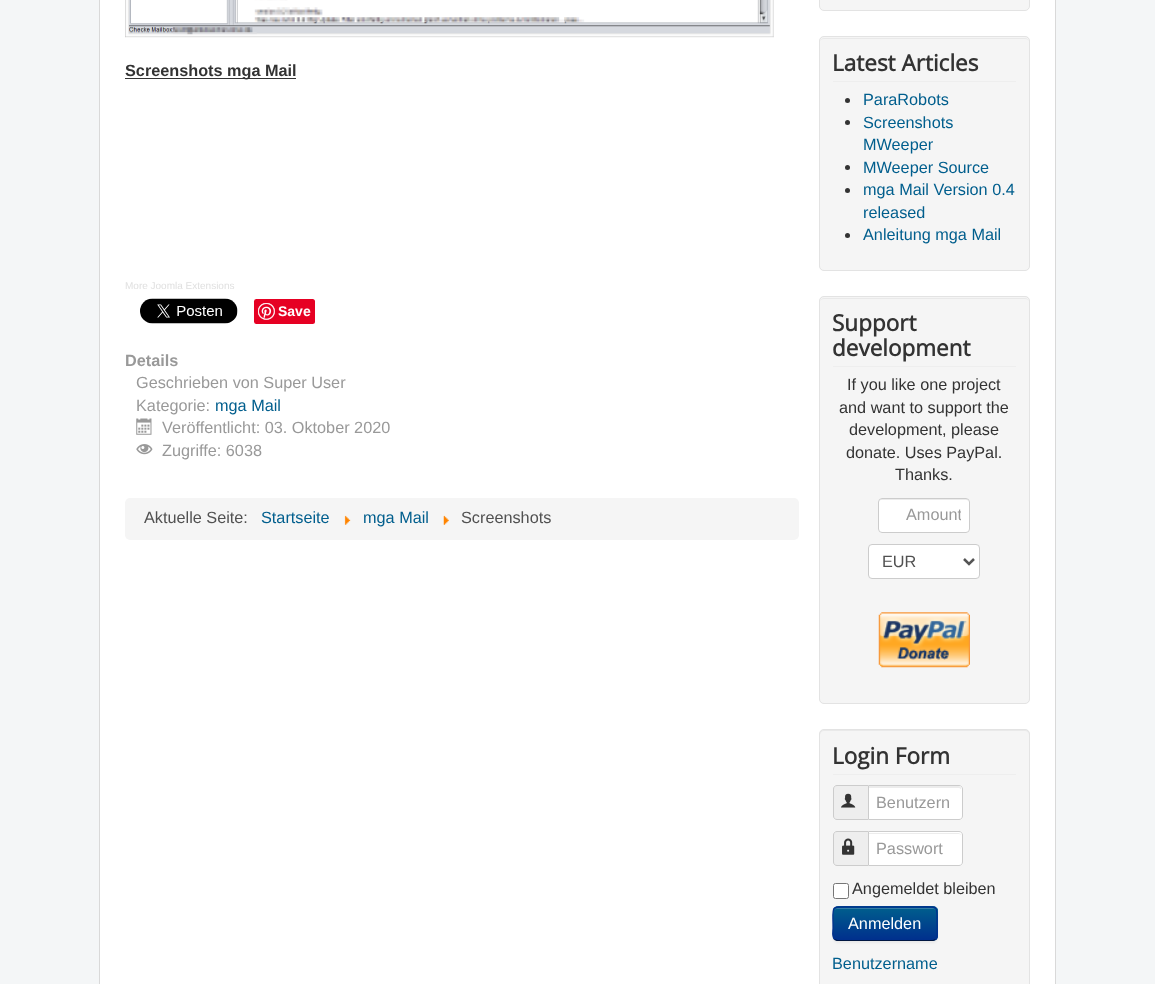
<svg xmlns="http://www.w3.org/2000/svg" width="1155" height="984" viewBox="0 0 1155 984">
  <defs>
    <clipPath id="clip1"><rect x="886" y="505" width="75" height="19"/></clipPath>
    <clipPath id="clip2"><rect x="833" y="906" width="105" height="35" rx="5"/></clipPath>
    <linearGradient id="g1" gradientUnits="userSpaceOnUse" x1="885" y1="908" x2="885" y2="940"><stop offset="0" stop-color="rgb(0,94,141)"/><stop offset="1" stop-color="rgb(0,47,141)"/></linearGradient>
  </defs>
  <rect width="100%" height="100%" fill="rgb(244,246,247)"/>
  <rect x="99.5" y="-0.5" width="956" height="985" fill="rgb(255,255,255)" stroke="rgb(217,217,217)"/>
  <image x="125" y="0" width="649" height="38" href="pic1.png"/>
  <rect x="125" y="78" width="171" height="1" fill="rgb(51,51,51)"/>
  <text x="125" y="76" font-family="Liberation Sans" font-size="16.25" font-weight="bold" fill="rgb(51,51,51)">Screenshots mga Mail</text>
  <text x="125" y="289" font-family="Liberation Sans" font-size="10" fill="rgb(224,224,224)">More Joomla Extensions</text>
  <image x="140" y="298" width="98" height="26" href="pic2.png"/>
  <rect x="254" y="299" width="61" height="25" rx="2.5" fill="rgb(230,0,35)"/>
  <image x="258" y="303" width="17" height="17" href="pic3.png"/>
  <text x="278" y="316" font-family="Liberation Sans" font-size="14" font-weight="bold" fill="rgb(255,255,255)">Save</text>
  <text x="125" y="366" font-family="Liberation Sans" font-size="16.25" font-weight="bold" fill="rgb(153,153,153)">Details</text>
  <g font-family="Liberation Sans" font-size="16.25" fill="rgb(153,153,153)">
    <text>
      <tspan x="136" y="388">Geschrieben von Super User</tspan>
      <tspan x="136" y="411">Kategorie:</tspan>
    </text>
  </g>
  <text x="215" y="411" font-family="Liberation Sans" font-size="16.25" fill="rgb(0,94,141)">mga Mail</text>
  <image x="136" y="418" width="16" height="17" href="pic4.png"/>
  <text x="162" y="433" font-family="Liberation Sans" font-size="16.25" fill="rgb(153,153,153)">Veröffentlicht: 03. Oktober 2020</text>
  <image x="136" y="444" width="17" height="11" href="pic5.png"/>
  <text x="162" y="456" font-family="Liberation Sans" font-size="16.25" fill="rgb(153,153,153)">Zugriffe: 6038</text>
  <rect x="125" y="498" width="674" height="42" rx="5" fill="rgb(245,245,245)"/>
  <text x="144" y="523" font-family="Liberation Sans" font-size="16.25" fill="rgb(81,81,81)">Aktuelle Seite:</text>
  <text x="261" y="523" font-family="Liberation Sans" font-size="16.25" fill="rgb(0,94,141)">Startseite</text>
  <image x="344" y="515" width="7" height="10" href="pic6.png"/>
  <text x="363" y="523" font-family="Liberation Sans" font-size="16.25" fill="rgb(0,94,141)">mga Mail</text>
  <image x="443" y="515" width="6" height="10" href="pic7.png"/>
  <text x="461" y="523" font-family="Liberation Sans" font-size="16.25" fill="rgb(81,81,81)">Screenshots</text>
  <rect x="819.5" y="-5.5" width="210" height="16" rx="4.5" fill="rgb(245,245,245)" stroke="rgb(227,227,227)"/>
  <rect x="819" y="36" width="211" height="235" rx="5" fill="rgb(245,245,245)"/>
  <path d="M824 39H1025C1027 39 1029 40 1029 42C1029 40 1027 38 1025 38H824C822 38 820 40 820 42C820 40 822 39 824 39Z" fill="rgb(233,233,233)"/>
  <rect x="819.5" y="36.5" width="210" height="234" rx="4.5" fill="none" stroke="rgb(227,227,227)"/>
  <rect x="833" y="81" width="183" height="1" fill="rgb(238,238,238)"/>
  <text x="832" y="71" font-family="Open Sans" font-size="22.5" font-weight="bold" fill="rgb(51,51,51)">Latest Articles</text>
  <circle cx="847.5" cy="100.5" r="2.5" fill="rgb(51,51,51)"/>
  <text x="863" y="105" font-family="Liberation Sans" font-size="16.25" fill="rgb(0,94,141)">ParaRobots</text>
  <circle cx="847.5" cy="122.5" r="2.5" fill="rgb(51,51,51)"/>
  <g font-family="Liberation Sans" font-size="16.25" fill="rgb(0,94,141)">
    <text>
      <tspan x="863" y="128">Screenshots</tspan>
      <tspan x="863" y="150">MWeeper</tspan>
    </text>
  </g>
  <circle cx="847.5" cy="167.5" r="2.5" fill="rgb(51,51,51)"/>
  <text x="863" y="173" font-family="Liberation Sans" font-size="16.25" fill="rgb(0,94,141)">MWeeper Source</text>
  <circle cx="847.5" cy="190.5" r="2.5" fill="rgb(51,51,51)"/>
  <g font-family="Liberation Sans" font-size="16.25" fill="rgb(0,94,141)">
    <text>
      <tspan x="863" y="195">mga Mail Version 0.4</tspan>
      <tspan x="863" y="218">released</tspan>
    </text>
  </g>
  <circle cx="847.5" cy="235.5" r="2.5" fill="rgb(51,51,51)"/>
  <text x="863" y="240" font-family="Liberation Sans" font-size="16.25" fill="rgb(0,94,141)">Anleitung mga Mail</text>
  <rect x="819" y="296" width="211" height="408" rx="5" fill="rgb(245,245,245)"/>
  <path d="M824 299H1025C1027 299 1029 300 1029 302C1029 300 1027 298 1025 298H824C822 298 820 300 820 302C820 300 822 299 824 299Z" fill="rgb(233,233,233)"/>
  <rect x="819.5" y="296.5" width="210" height="407" rx="4.5" fill="none" stroke="rgb(227,227,227)"/>
  <rect x="833" y="366" width="183" height="1" fill="rgb(238,238,238)"/>
  <g font-family="Open Sans" font-size="22.5" font-weight="bold" fill="rgb(51,51,51)">
    <text>
      <tspan x="832" y="331">Support</tspan>
      <tspan x="832" y="356">development</tspan>
    </text>
  </g>
  <g font-family="Liberation Sans" font-size="16.25" fill="rgb(51,51,51)">
    <text x="847" y="390">If you like one project</text>
    <text x="839" y="413">and want to support the</text>
    <text x="849" y="435">development, please</text>
    <text x="846" y="458">donate. Uses PayPal.</text>
    <text x="895" y="480">Thanks.</text>
  </g>
  <rect x="878" y="498" width="92" height="35" rx="4" fill="rgb(255,255,255)"/>
  <path d="M881 500H966C968 500 969 501 969 502C969 501 968 499 967 499H882C880 499 879 500 879 502C879 501 880 500 881 500Z" fill="rgb(236,236,236)"/>
  <rect x="878.5" y="498.5" width="91" height="34" rx="3.5" fill="none" stroke="rgb(204,204,204)"/>
  <g clip-path="url(#clip1)">
    <text x="906" y="520" font-family="Liberation Sans" font-size="16.25" fill="rgb(153,153,153)">Amount</text>
  </g>
  <rect x="868.5" y="544.5" width="111" height="34" rx="3.5" fill="rgb(255,255,255)" stroke="rgb(204,204,204)"/>
  <path d="M964 559L969 564L974 559" fill="none" stroke="rgb(85,85,85)" stroke-width="2.5"/>
  <text x="882" y="567" font-family="Liberation Sans" font-size="16.25" fill="rgb(81,81,81)">EUR</text>
  <image x="878" y="612" width="92" height="56" href="pic8.png"/>
  <rect x="819" y="729" width="211" height="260" rx="5" fill="rgb(245,245,245)"/>
  <path d="M824 731H1025C1027 731 1029 733 1029 735V734C1029 732 1027 730 1025 730H824C822 730 820 732 820 734V735C820 733 822 731 824 731Z" fill="rgb(233,233,233)"/>
  <rect x="819.5" y="729.5" width="210" height="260" rx="4.5" fill="none" stroke="rgb(227,227,227)"/>
  <rect x="833" y="774" width="183" height="1" fill="rgb(238,238,238)"/>
  <text x="832" y="764" font-family="Open Sans" font-size="22.5" font-weight="bold" fill="rgb(51,51,51)">Login Form</text>
  <path d="M837 785.5H868.5V819.5H837C835 819.5 833.5 818 833.5 816V789C833.5 787 835 785.5 837 785.5Z" fill="rgb(238,238,238)" stroke="rgb(204,204,204)"/>
  <image x="841" y="793" width="15" height="15" href="pic9.png"/>
  <path d="M868 785H959C961 785 963 787 963 789V816C963 818 961 820 959 820H868Z" fill="rgb(255,255,255)"/>
  <path d="M869 788H959C960 788 961 789 961 790V788C961 787 960 786 958 786H869Z" fill="rgb(236,236,236)"/>
  <path d="M868.5 785.5H959C961 785.5 962.5 787 962.5 789V816C962.5 818 961 819.5 959 819.5H868.5Z" fill="none" stroke="rgb(204,204,204)"/>
  <text x="876" y="808" font-family="Liberation Sans" font-size="16.25" fill="rgb(153,153,153)">Benutzern</text>
  <path d="M837 831.5H868.5V865.5H837C835 865.5 833.5 864 833.5 862V835C833.5 833 835 831.5 837 831.5Z" fill="rgb(238,238,238)" stroke="rgb(204,204,204)"/>
  <image x="842" y="838" width="13" height="17" href="pic10.png"/>
  <path d="M868 831H959C961 831 963 833 963 835V862C963 864 961 866 959 866H868Z" fill="rgb(255,255,255)"/>
  <path d="M869 834H959C960 834 961 835 961 836C961 834 960 833 958 833H869Z" fill="rgb(236,236,236)"/>
  <path d="M868.5 831.5H959C961 831.5 962.5 833 962.5 835V862C962.5 864 961 865.5 959 865.5H868.5Z" fill="none" stroke="rgb(204,204,204)"/>
  <text x="876" y="854" font-family="Liberation Sans" font-size="16.25" fill="rgb(153,153,153)">Passwort</text>
  <rect x="833.5" y="883.5" width="15" height="15" rx="2" fill="rgb(255,255,255)" stroke="rgb(118,118,118)"/>
  <text x="852" y="894" font-family="Liberation Sans" font-size="16.25" fill="rgb(51,51,51)">Angemeldet bleiben</text>
  <rect x="833" y="908" width="105" height="35" rx="5" fill="rgba(0,0,0,0.05)" filter="blur(1px)"/>
  <rect x="833" y="906" width="105" height="35" rx="5" fill="rgb(0,75,141)"/>
  <g clip-path="url(#clip2)">
    <rect x="833" y="908" width="105" height="32" fill="url(#g1)"/>
  </g>
  <path d="M838 909H934L936 910C935 909 934 908 932 908H838C836 908 835 909 834 910C835 909 836 909 838 909Z" fill="rgb(51,125,164)"/>
  <path d="M935.5 939.5L933 940.5H837L834.5 939.5" fill="none" stroke="rgb(0,22,65)" stroke-width="1.2"/>
  <path d="M834.5 939.5C831.5 936.5 833 931 833 928C833 904 829 907 853.5 907H916.5C939 907 937 903.5 937 924C937 927 938 937 935.5 939.5" fill="none" stroke="rgb(0,47,141)" stroke-width="1.2"/>
  <text x="848" y="929" font-family="Liberation Sans" font-size="16.25" fill="rgb(255,255,255)">Anmelden</text>
  <text x="832" y="969" font-family="Liberation Sans" font-size="16.25" fill="rgb(0,94,141)">Benutzername</text>
</svg>
